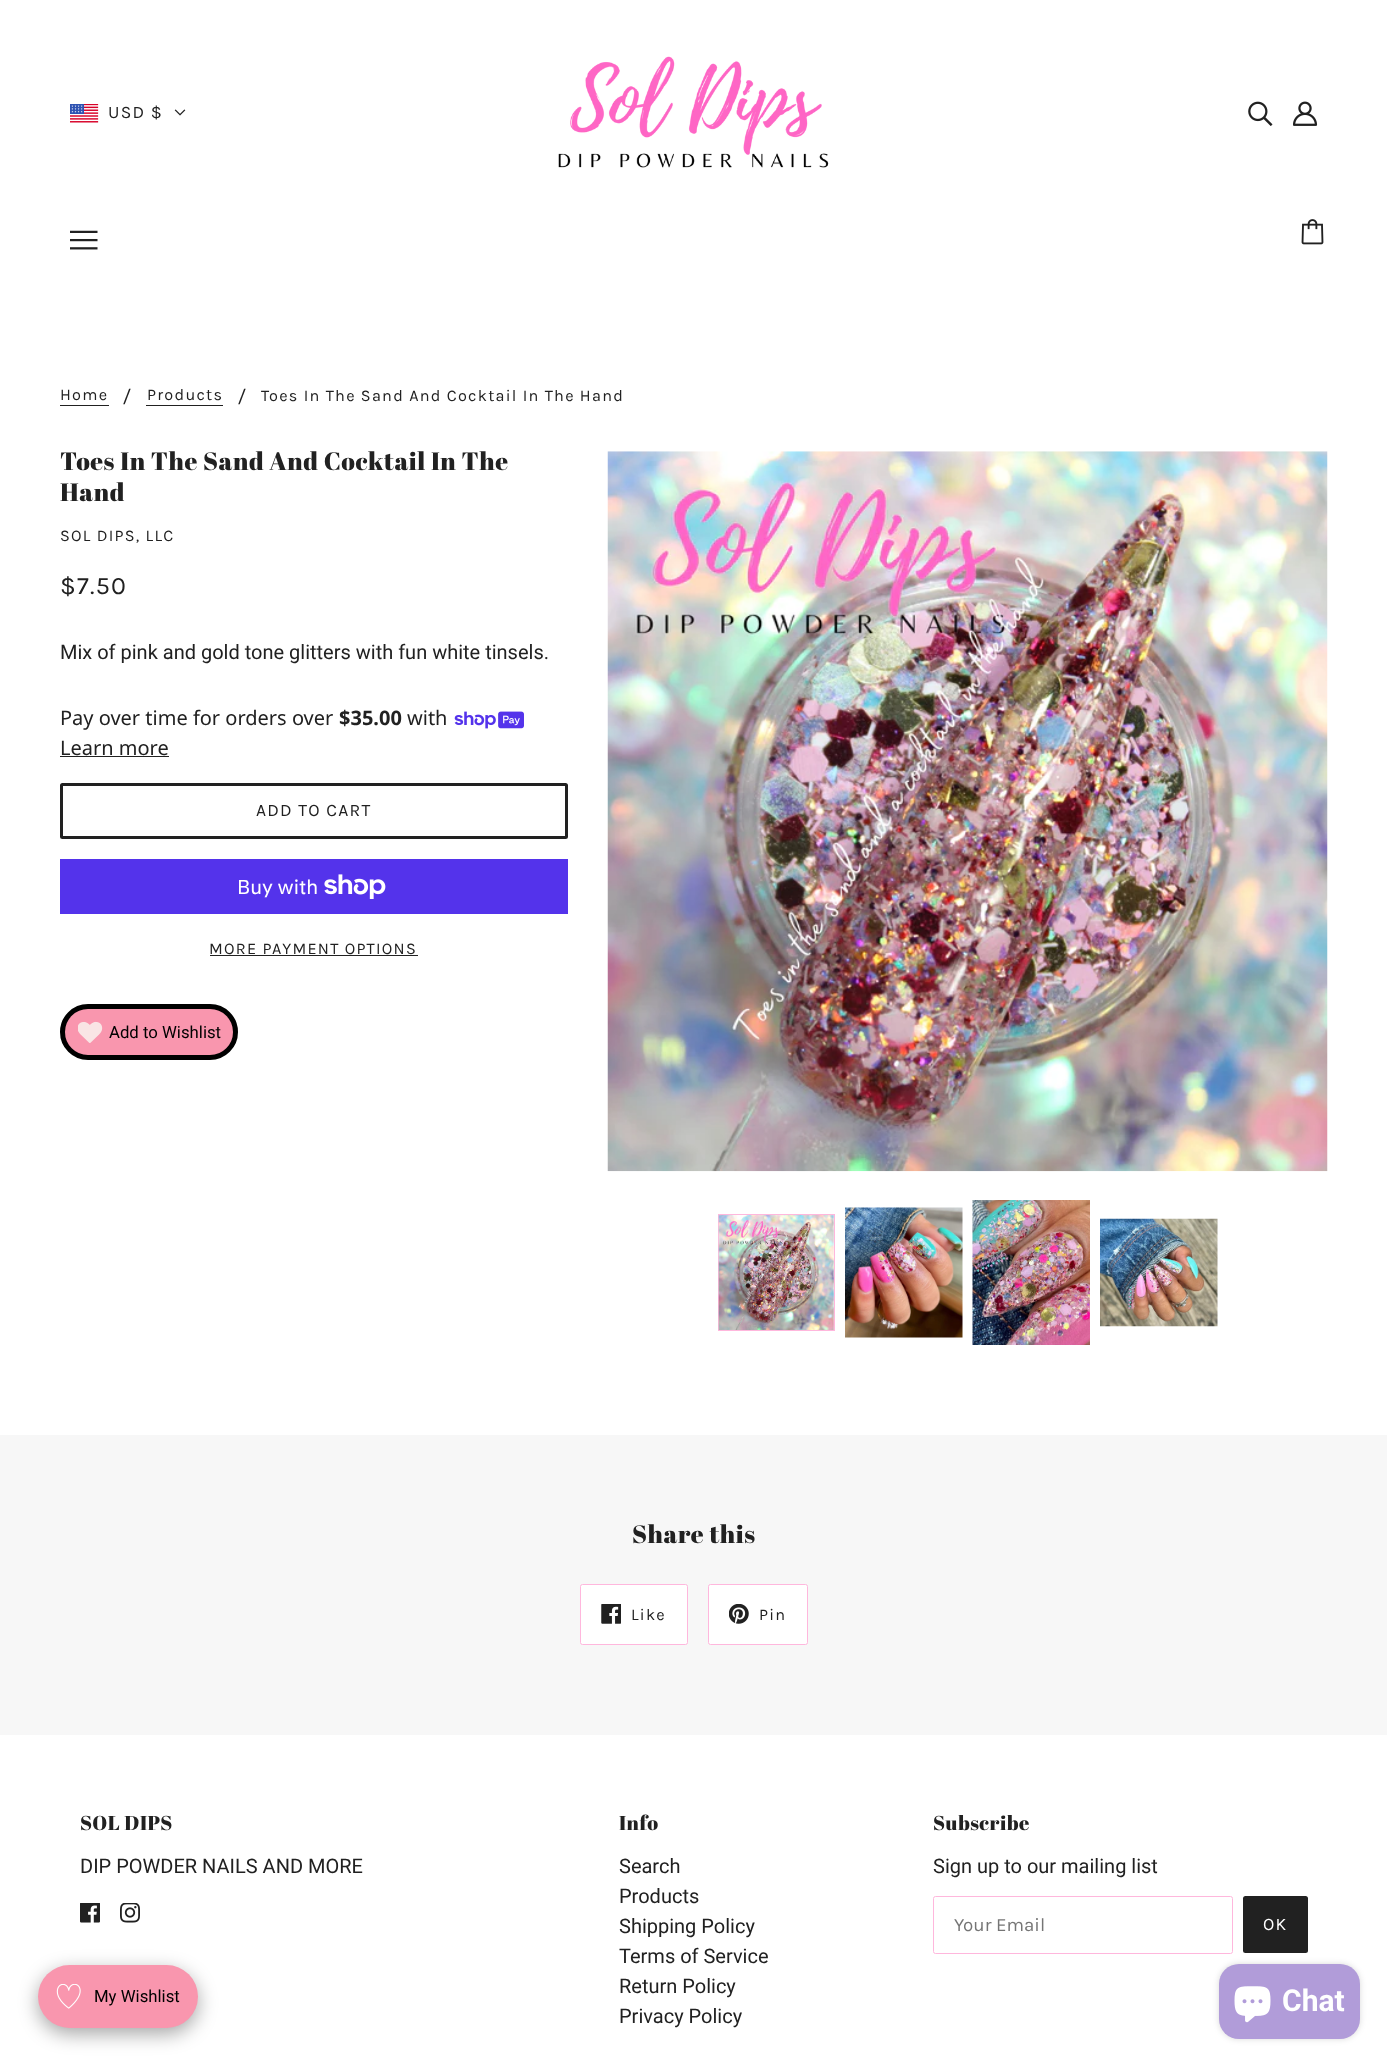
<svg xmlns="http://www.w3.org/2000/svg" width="1387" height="2064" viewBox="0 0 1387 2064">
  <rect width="100%" height="100%" fill="rgb(255,255,255)"/>
  <image x="70" y="104" width="29" height="19" href="pic1.png"/>
  <text x="108" y="118" font-family="Karla" font-size="17.5" letter-spacing="1.25" fill="rgb(33,33,33)">USD $</text>
  <image x="174" y="109" width="12" height="7" href="pic2.png"/>
  <image x="558" y="56" width="271" height="112" href="pic3.png"/>
  <image x="1248" y="101" width="25" height="25" href="pic4.png"/>
  <image x="1293" y="101" width="25" height="25" href="pic5.png"/>
  <image x="70" y="230" width="28" height="20" href="pic6.png"/>
  <image x="1301" y="219" width="23" height="26" href="pic7.png"/>
  <text x="60" y="400" font-family="Karla" font-size="16.25" letter-spacing="1.25" fill="rgb(33,33,33)">Home</text>
  <rect x="60" y="405" width="49" height="1" fill="rgb(33,33,33)"/>
  <text x="123" y="403" font-family="Roboto" font-size="20" fill="rgb(33,33,33)">/</text>
  <text x="147" y="400" font-family="Karla" font-size="16.25" letter-spacing="1.25" fill="rgb(33,33,33)">Products</text>
  <rect x="146" y="405" width="77" height="1" fill="rgb(33,33,33)"/>
  <text x="238" y="403" font-family="Roboto" font-size="20" fill="rgb(33,33,33)">/</text>
  <text x="261" y="401" font-family="Karla" font-size="16.25" letter-spacing="1.25" fill="rgb(33,33,33)">Toes In The Sand And Cocktail In The Hand</text>
  <g font-family="Abril Fatface" font-size="25" letter-spacing="0.6" fill="rgb(33,33,33)">
    <text>
      <tspan x="60" y="470">Toes In The Sand And Cocktail In The</tspan>
      <tspan x="60" y="501">Hand</tspan>
    </text>
  </g>
  <text x="60" y="541" font-family="Karla" font-size="16.25" letter-spacing="1.25" fill="rgb(33,33,33)">SOL DIPS, LLC</text>
  <text x="60" y="594" font-family="Karla" font-size="25" letter-spacing="1.25" fill="rgb(33,33,33)">$7.50</text>
  <image x="607" y="451" width="721" height="721" href="pic8.png"/>
  <rect x="718.5" y="1214.5" width="116" height="116" fill="none" stroke="rgb(255,183,221)"/>
  <image x="718" y="1215" width="116" height="115" href="pic9.png"/>
  <image x="845" y="1207" width="118" height="131" href="pic10.png"/>
  <image x="972" y="1200" width="118" height="145" href="pic11.png"/>
  <image x="1100" y="1218" width="118" height="109" href="pic12.png"/>
  <text x="60" y="659" font-family="Roboto" font-size="20" fill="rgb(33,33,33)">Mix of pink and gold tone glitters with fun white tinsels.</text>
  <text x="60" y="725" font-family="Noto Sans" font-size="20" fill="rgb(33,33,33)">Pay over time for orders over</text>
  <text x="339" y="725" font-family="Noto Sans" font-size="20" font-weight="bold" fill="rgb(33,33,33)">$35.00</text>
  <text x="407" y="725" font-family="Noto Sans" font-size="20" fill="rgb(33,33,33)">with</text>
  <image x="454" y="711" width="70" height="18" href="pic13.png"/>
  <text x="60" y="755" font-family="Noto Sans" font-size="20" fill="rgb(33,33,33)">Learn more</text>
  <rect x="60" y="756" width="109" height="1" fill="rgb(33,33,33)"/>
  <rect x="61.5" y="784.5" width="505" height="53" rx="1" fill="none" stroke="rgb(33,33,33)" stroke-width="3"/>
  <text x="256" y="816" font-family="Karla" font-size="17.5" letter-spacing="1.25" fill="rgb(33,33,33)">ADD TO CART</text>
  <rect x="60" y="859" width="508" height="55" fill="rgb(84,51,235)"/>
  <text x="237" y="894" font-family="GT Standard" font-size="20" fill="rgb(255,255,255)">Buy with</text>
  <image x="324" y="874" width="62" height="25" href="pic14.png"/>
  <text x="209" y="954" font-family="Karla" font-size="16.25" letter-spacing="1.25" fill="rgb(33,33,33)">MORE PAYMENT OPTIONS</text>
  <rect x="210" y="955" width="208" height="1" fill="rgb(33,33,33)"/>
  <rect x="62.5" y="1006.5" width="173" height="51" rx="25.5" fill="rgb(249,150,174)" stroke="rgb(0,0,0)" stroke-width="5"/>
  <image x="78" y="1021" width="25" height="22" href="pic15.png"/>
  <text x="109" y="1038" font-family="Roboto" font-size="16.75" fill="rgb(0,0,0)">Add to Wishlist</text>
  <rect x="0" y="1435" width="1387" height="300" fill="rgb(247,247,247)"/>
  <text x="632" y="1543" font-family="Abril Fatface" font-size="25" letter-spacing="0.6" fill="rgb(33,33,33)">Share this</text>
  <rect x="580.5" y="1584.5" width="107" height="60" rx="2" fill="rgb(255,255,255)" stroke="rgb(255,183,221)"/>
  <image x="601" y="1604" width="20" height="20" href="pic16.png"/>
  <text x="631" y="1620" font-family="Karla" font-size="16.25" letter-spacing="1.25" fill="rgb(33,33,33)">Like</text>
  <rect x="708.5" y="1584.5" width="99" height="60" rx="2" fill="rgb(255,255,255)" stroke="rgb(255,183,221)"/>
  <image x="729" y="1604" width="20" height="20" href="pic17.png"/>
  <text x="759" y="1620" font-family="Karla" font-size="16.25" letter-spacing="1.25" fill="rgb(33,33,33)">Pin</text>
  <text x="80" y="1830" font-family="Abril Fatface" font-size="20" letter-spacing="0.5" fill="rgb(33,33,33)">SOL DIPS</text>
  <text x="80" y="1873" font-family="Roboto" font-size="20" fill="rgb(33,33,33)">DIP POWDER NAILS AND MORE</text>
  <image x="80" y="1903" width="20" height="20" href="pic18.png"/>
  <image x="120" y="1903" width="20" height="20" href="pic19.png"/>
  <text x="619" y="1830" font-family="Abril Fatface" font-size="20" letter-spacing="0.5" fill="rgb(33,33,33)">Info</text>
  <g font-family="Roboto" font-size="20" fill="rgb(33,33,33)">
    <text>
      <tspan x="619" y="1873">Search</tspan>
      <tspan x="619" y="1903">Products</tspan>
      <tspan x="619" y="1933">Shipping Policy</tspan>
      <tspan x="619" y="1963">Terms of Service</tspan>
      <tspan x="619" y="1993">Return Policy</tspan>
      <tspan x="619" y="2023">Privacy Policy</tspan>
    </text>
  </g>
  <text x="933" y="1830" font-family="Abril Fatface" font-size="20" letter-spacing="0.5" fill="rgb(33,33,33)">Subscribe</text>
  <text x="933" y="1873" font-family="Roboto" font-size="20" fill="rgb(33,33,33)">Sign up to our mailing list</text>
  <rect x="933.5" y="1896.5" width="299" height="57" rx="2" fill="none" stroke="rgb(255,183,221)"/>
  <text x="954" y="1931" font-family="Karla" font-size="18.75" fill="rgb(117,117,117)">Your Email</text>
  <rect x="1243" y="1896" width="65" height="57" rx="2.5" fill="rgb(33,33,33)"/>
  <text x="1263" y="1930" font-family="Karla" font-size="17.5" letter-spacing="1.25" fill="rgb(255,255,255)">OK</text>
  <rect x="1219" y="1964" width="141" height="75" rx="20" fill="rgba(0,0,0,0.15)" filter="blur(3px)"/>
  <rect x="1219" y="1964" width="141" height="75" rx="20" fill="rgb(177,156,217)"/>
  <image x="1234" y="1986" width="37" height="37" href="pic20.png"/>
  <text x="1282" y="2011" font-family="Roboto" font-size="30" font-weight="bold" fill="rgb(255,255,255)">Chat</text>
  <rect x="38" y="1971" width="160" height="63" rx="31.5" fill="rgba(0,0,0,0.35)" filter="blur(9.5px)"/>
  <rect x="38" y="1965" width="160" height="63" rx="31.5" fill="rgb(249,150,174)"/>
  <image x="56" y="1984" width="25" height="25" href="pic21.png"/>
  <text x="94" y="2002" font-family="Roboto" font-size="16.75" fill="rgb(0,0,0)">My Wishlist</text>
</svg>
